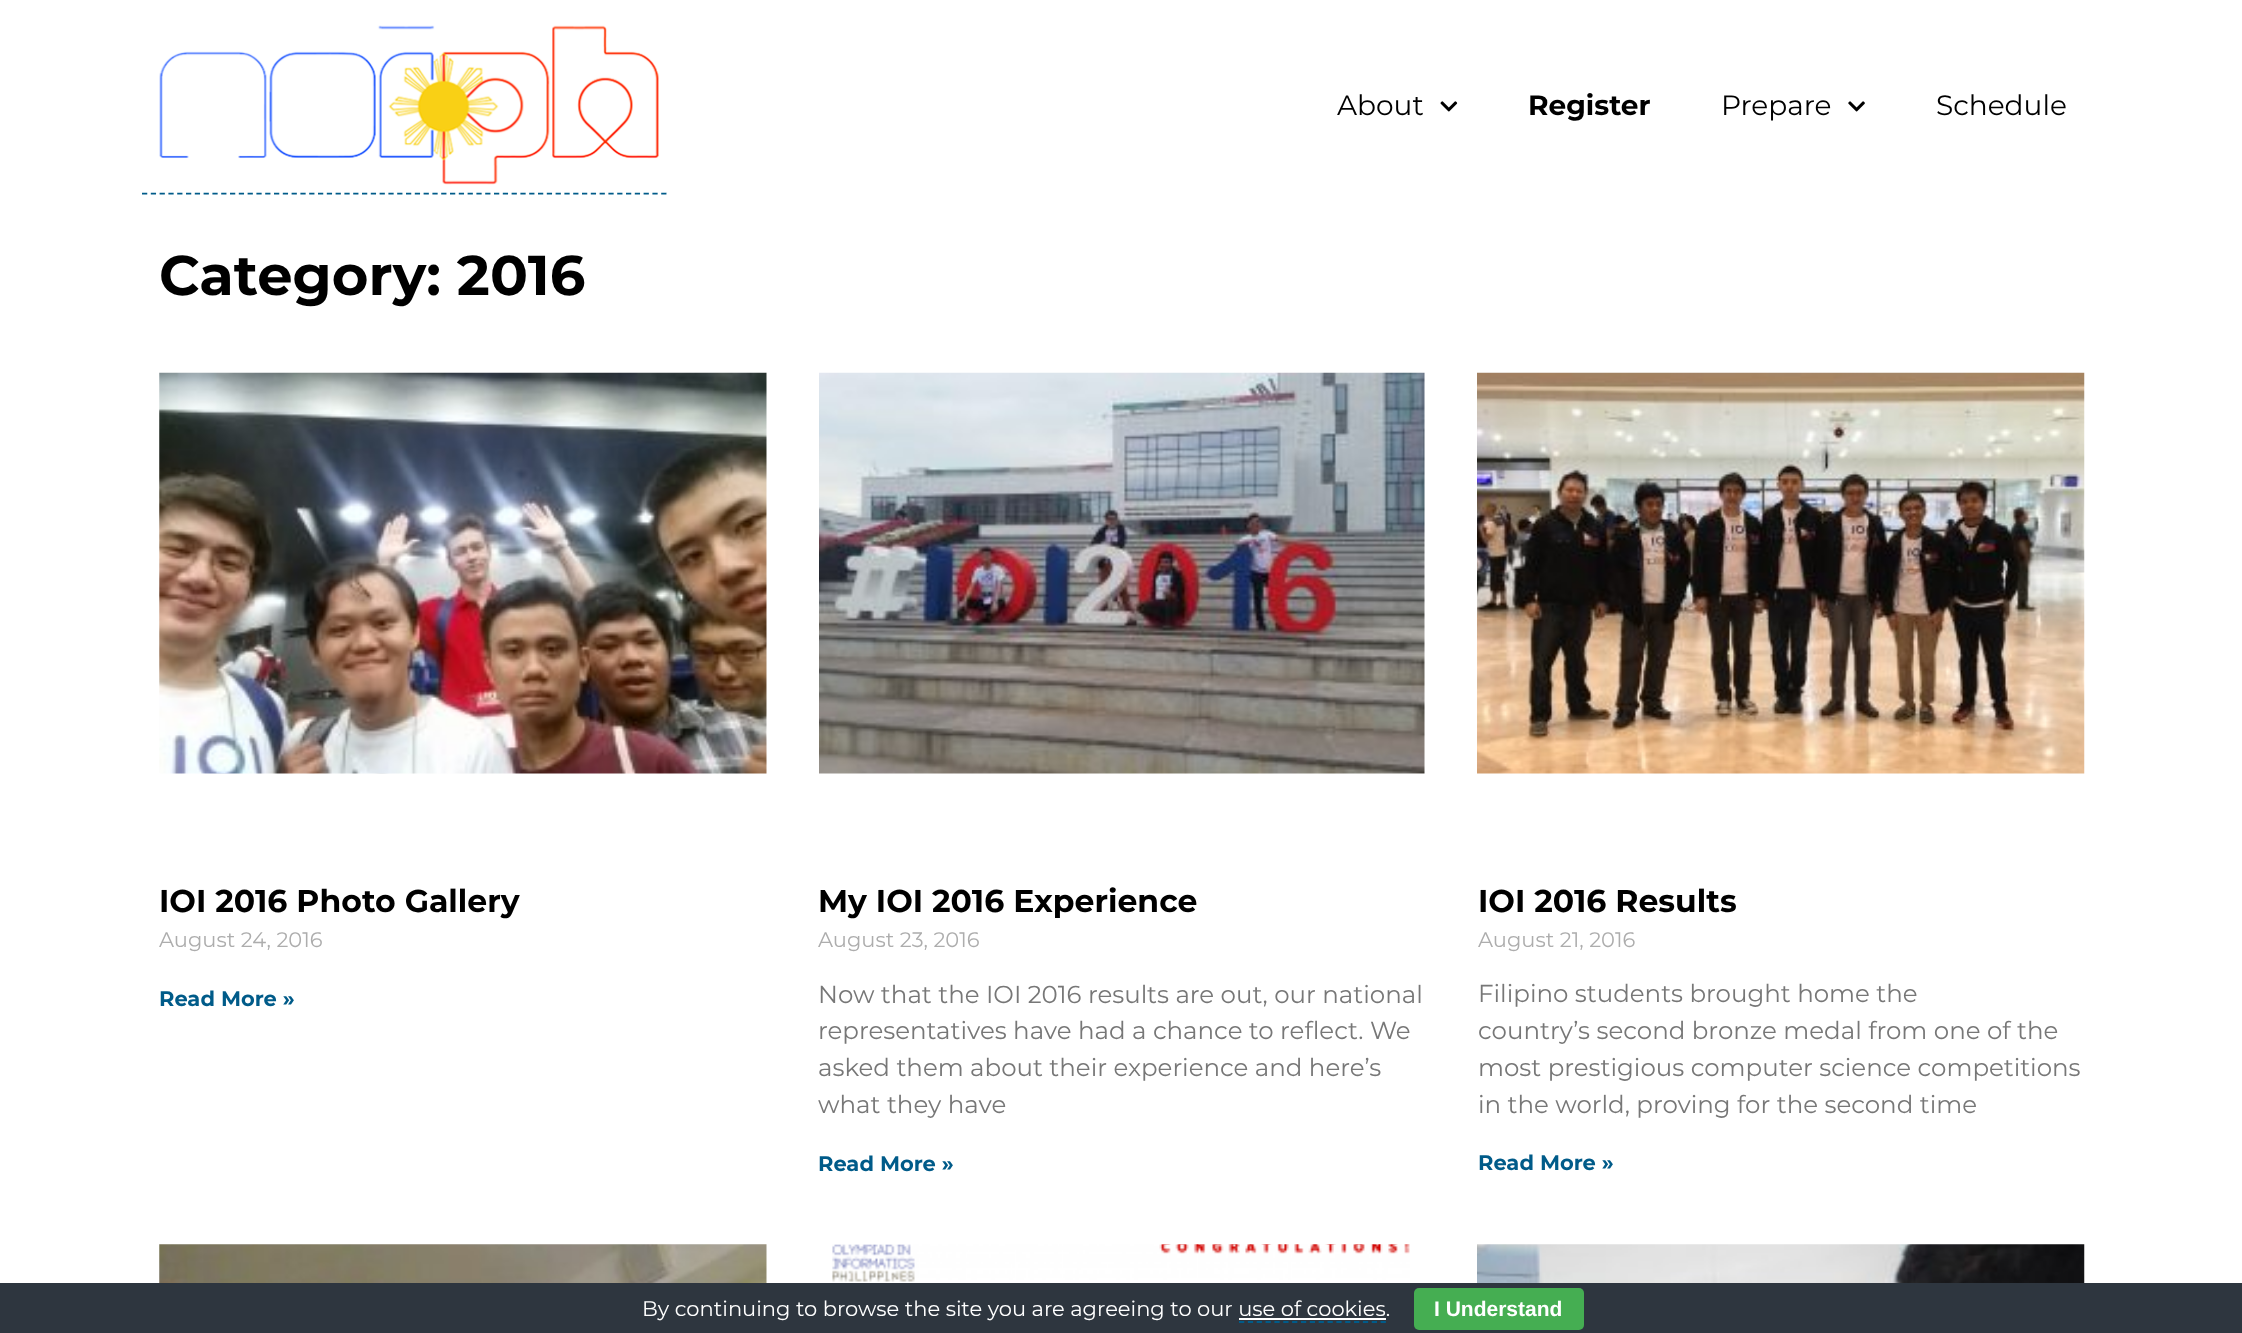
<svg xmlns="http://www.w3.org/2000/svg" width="2242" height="1333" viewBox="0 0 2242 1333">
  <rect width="100%" height="100%" fill="rgb(255,255,255)"/>
  <path d="M142 193.5H667" fill="none" stroke="rgb(0,91,137)" stroke-width="1.8" stroke-dasharray="5.25 3.55"/>
  <image x="142" y="25" width="525" height="168" href="pic1.png"/>
  <text x="1337" y="115" font-family="Montserrat" font-size="28" fill="rgb(0,0,0)">About</text>
  <image x="1440" y="101" width="18" height="11" href="pic2.png"/>
  <text x="1528" y="115" font-family="Montserrat" font-size="28" font-weight="bold" fill="rgb(0,0,0)">Register</text>
  <text x="1721" y="115" font-family="Montserrat" font-size="28" fill="rgb(0,0,0)">Prepare</text>
  <image x="1848" y="101" width="17" height="11" href="pic3.png"/>
  <text x="1936" y="115" font-family="Montserrat" font-size="28" fill="rgb(0,0,0)">Schedule</text>
  <text x="159" y="295" font-family="Montserrat" font-size="56" font-weight="bold" fill="rgb(0,0,0)">Category: 2016</text>
  <image x="159" y="372" width="608" height="402" href="pic4.png"/>
  <text x="159" y="912" font-family="Montserrat" font-size="31.5" font-weight="bold" fill="rgb(0,0,0)">IOI 2016 Photo Gallery</text>
  <text x="159" y="947" font-family="Montserrat" font-size="21" fill="rgb(173,173,173)">August 24, 2016</text>
  <text x="159" y="1006" font-family="Montserrat" font-size="21" font-weight="bold" fill="rgb(0,91,137)">Read More »</text>
  <image x="819" y="372" width="606" height="402" href="pic5.png"/>
  <text x="818" y="912" font-family="Montserrat" font-size="31.5" font-weight="bold" fill="rgb(0,0,0)">My IOI 2016 Experience</text>
  <text x="818" y="947" font-family="Montserrat" font-size="21" fill="rgb(173,173,173)">August 23, 2016</text>
  <g font-family="Montserrat" font-size="24.5" fill="rgb(119,119,119)">
    <text>
      <tspan x="818" y="1003">Now that the IOI 2016 results are out, our national</tspan>
      <tspan x="818" y="1039">representatives have had a chance to reflect. We</tspan>
      <tspan x="818" y="1076">asked them about their experience and here’s</tspan>
      <tspan x="818" y="1113">what they have</tspan>
    </text>
  </g>
  <text x="818" y="1171" font-family="Montserrat" font-size="21" font-weight="bold" fill="rgb(0,91,137)">Read More »</text>
  <image x="1477" y="372" width="608" height="402" href="pic6.png"/>
  <text x="1478" y="912" font-family="Montserrat" font-size="31.5" font-weight="bold" fill="rgb(0,0,0)">IOI 2016 Results</text>
  <text x="1478" y="947" font-family="Montserrat" font-size="21" fill="rgb(173,173,173)">August 21, 2016</text>
  <g font-family="Montserrat" font-size="24.5" fill="rgb(119,119,119)">
    <text>
      <tspan x="1478" y="1002">Filipino students brought home the</tspan>
      <tspan x="1478" y="1039">country’s second bronze medal from one of the</tspan>
      <tspan x="1478" y="1076">most prestigious computer science competitions</tspan>
      <tspan x="1478" y="1113">in the world, proving for the second time</tspan>
    </text>
  </g>
  <text x="1478" y="1170" font-family="Montserrat" font-size="21" font-weight="bold" fill="rgb(0,91,137)">Read More »</text>
  <image x="159" y="1244" width="608" height="39" href="pic7.png"/>
  <image x="832" y="1244" width="578" height="39" href="pic8.png"/>
  <image x="1477" y="1244" width="608" height="39" href="pic9.png"/>
  <rect x="0" y="1283" width="2242" height="50" fill="rgb(46,54,63)"/>
  <text x="642" y="1316" font-family="Montserrat" font-size="21" fill="rgb(255,255,255)">By continuing to browse the site you are agreeing to our use of cookies.</text>
  <rect x="1414" y="1288" width="170" height="42" rx="5" fill="rgb(69,174,82)"/>
  <text x="1434" y="1316" font-family="Liberation Sans" font-size="21" font-weight="bold" fill="rgb(255,255,255)">I Understand</text>
  <rect x="1239" y="1318" width="147" height="2" fill="rgb(255,255,255)"/>
  <path d="M1239 1322H1386" fill="none" stroke="rgb(0,91,137)" stroke-width="1.8" stroke-dasharray="5.25 3.6"/>
</svg>
